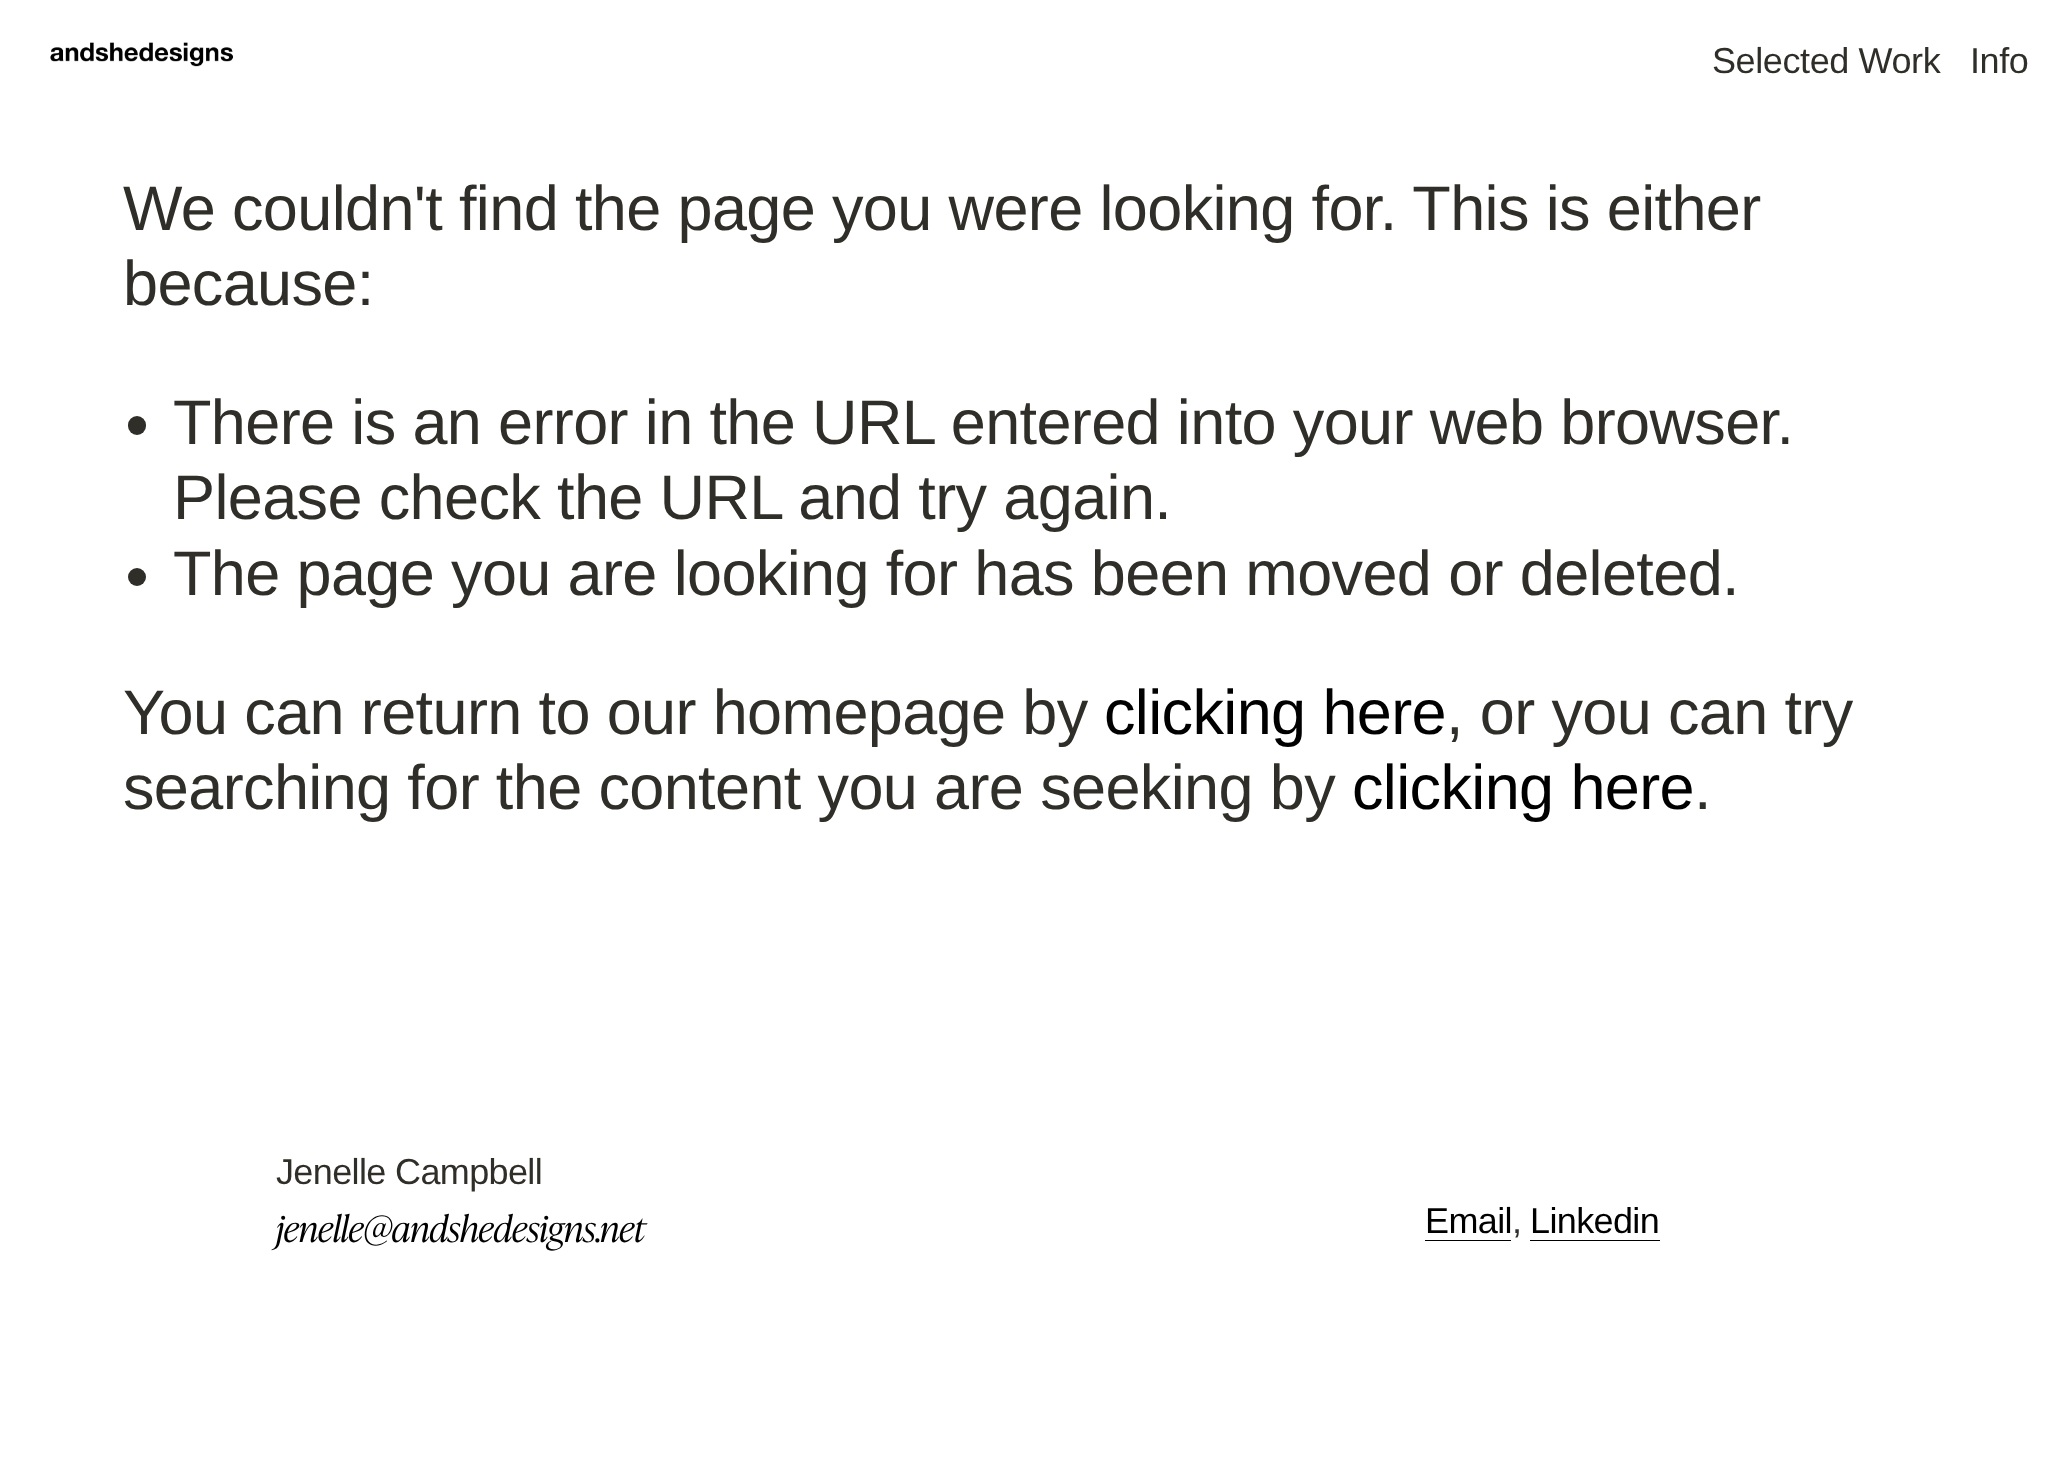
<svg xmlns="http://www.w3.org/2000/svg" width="2070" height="1463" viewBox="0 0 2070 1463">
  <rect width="100%" height="100%" fill="rgb(255,255,255)"/>
  <image x="50" y="42" width="184" height="25" href="pic1.png"/>
  <g font-family="Liberation Sans" font-size="36" letter-spacing="-0.4" fill="rgb(48,46,41)">
    <text x="1712" y="73">Selected Work</text>
    <text x="1970" y="73">Info</text>
  </g>
  <g font-family="Liberation Sans" font-size="63" letter-spacing="-0.63" fill="rgb(48,46,41)">
    <text>
      <tspan x="123" y="230">We couldn't find the page you were looking for. This is either</tspan>
      <tspan x="123" y="305">because:</tspan>
    </text>
  </g>
  <rect x="128" y="416" width="18" height="19" rx="9" fill="rgb(48,46,41)"/>
  <g font-family="Liberation Sans" font-size="63" letter-spacing="-0.63" fill="rgb(48,46,41)">
    <text>
      <tspan x="173" y="444">There is an error in the URL entered into your web browser.</tspan>
      <tspan x="173" y="519">Please check the URL and try again.</tspan>
    </text>
  </g>
  <circle cx="137" cy="577" r="9" fill="rgb(48,46,41)"/>
  <g font-family="Liberation Sans" font-size="63" letter-spacing="-0.63" fill="rgb(48,46,41)">
    <text x="173" y="595">The page you are looking for has been moved or deleted.</text>
    <text x="123" y="734">You can return to our homepage by</text>
  </g>
  <text x="1104" y="734" font-family="Liberation Sans" font-size="63" letter-spacing="-0.63" fill="rgb(0,0,0)">clicking here</text>
  <g font-family="Liberation Sans" font-size="63" letter-spacing="-0.63" fill="rgb(48,46,41)">
    <text x="1446" y="734">, or you can try</text>
    <text x="123" y="809">searching for the content you are seeking by</text>
  </g>
  <text x="1352" y="809" font-family="Liberation Sans" font-size="63" letter-spacing="-0.63" fill="rgb(0,0,0)">clicking here</text>
  <text x="1694" y="809" font-family="Liberation Sans" font-size="63" letter-spacing="-0.63" fill="rgb(48,46,41)">.</text>
  <text x="276" y="1184" font-family="Liberation Sans" font-size="36" letter-spacing="-0.63" fill="rgb(48,46,41)">Jenelle Campbell</text>
  <text x="276" y="1242" font-family="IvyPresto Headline" font-size="36" font-weight="300" font-style="italic" fill="rgb(0,0,0)">jenelle@andshedesigns.net</text>
  <text x="1425" y="1233" font-family="Liberation Sans" font-size="36" letter-spacing="-0.63" fill="rgb(0,0,0)">Email</text>
  <rect x="1425" y="1240" width="86" height="1" fill="rgb(0,0,0)"/>
  <text x="1512" y="1233" font-family="Liberation Sans" font-size="36" letter-spacing="-0.63" fill="rgb(48,46,41)">,</text>
  <text x="1530" y="1233" font-family="Liberation Sans" font-size="36" letter-spacing="-0.63" fill="rgb(0,0,0)">Linkedin</text>
  <rect x="1530" y="1240" width="130" height="1" fill="rgb(0,0,0)"/>
</svg>
